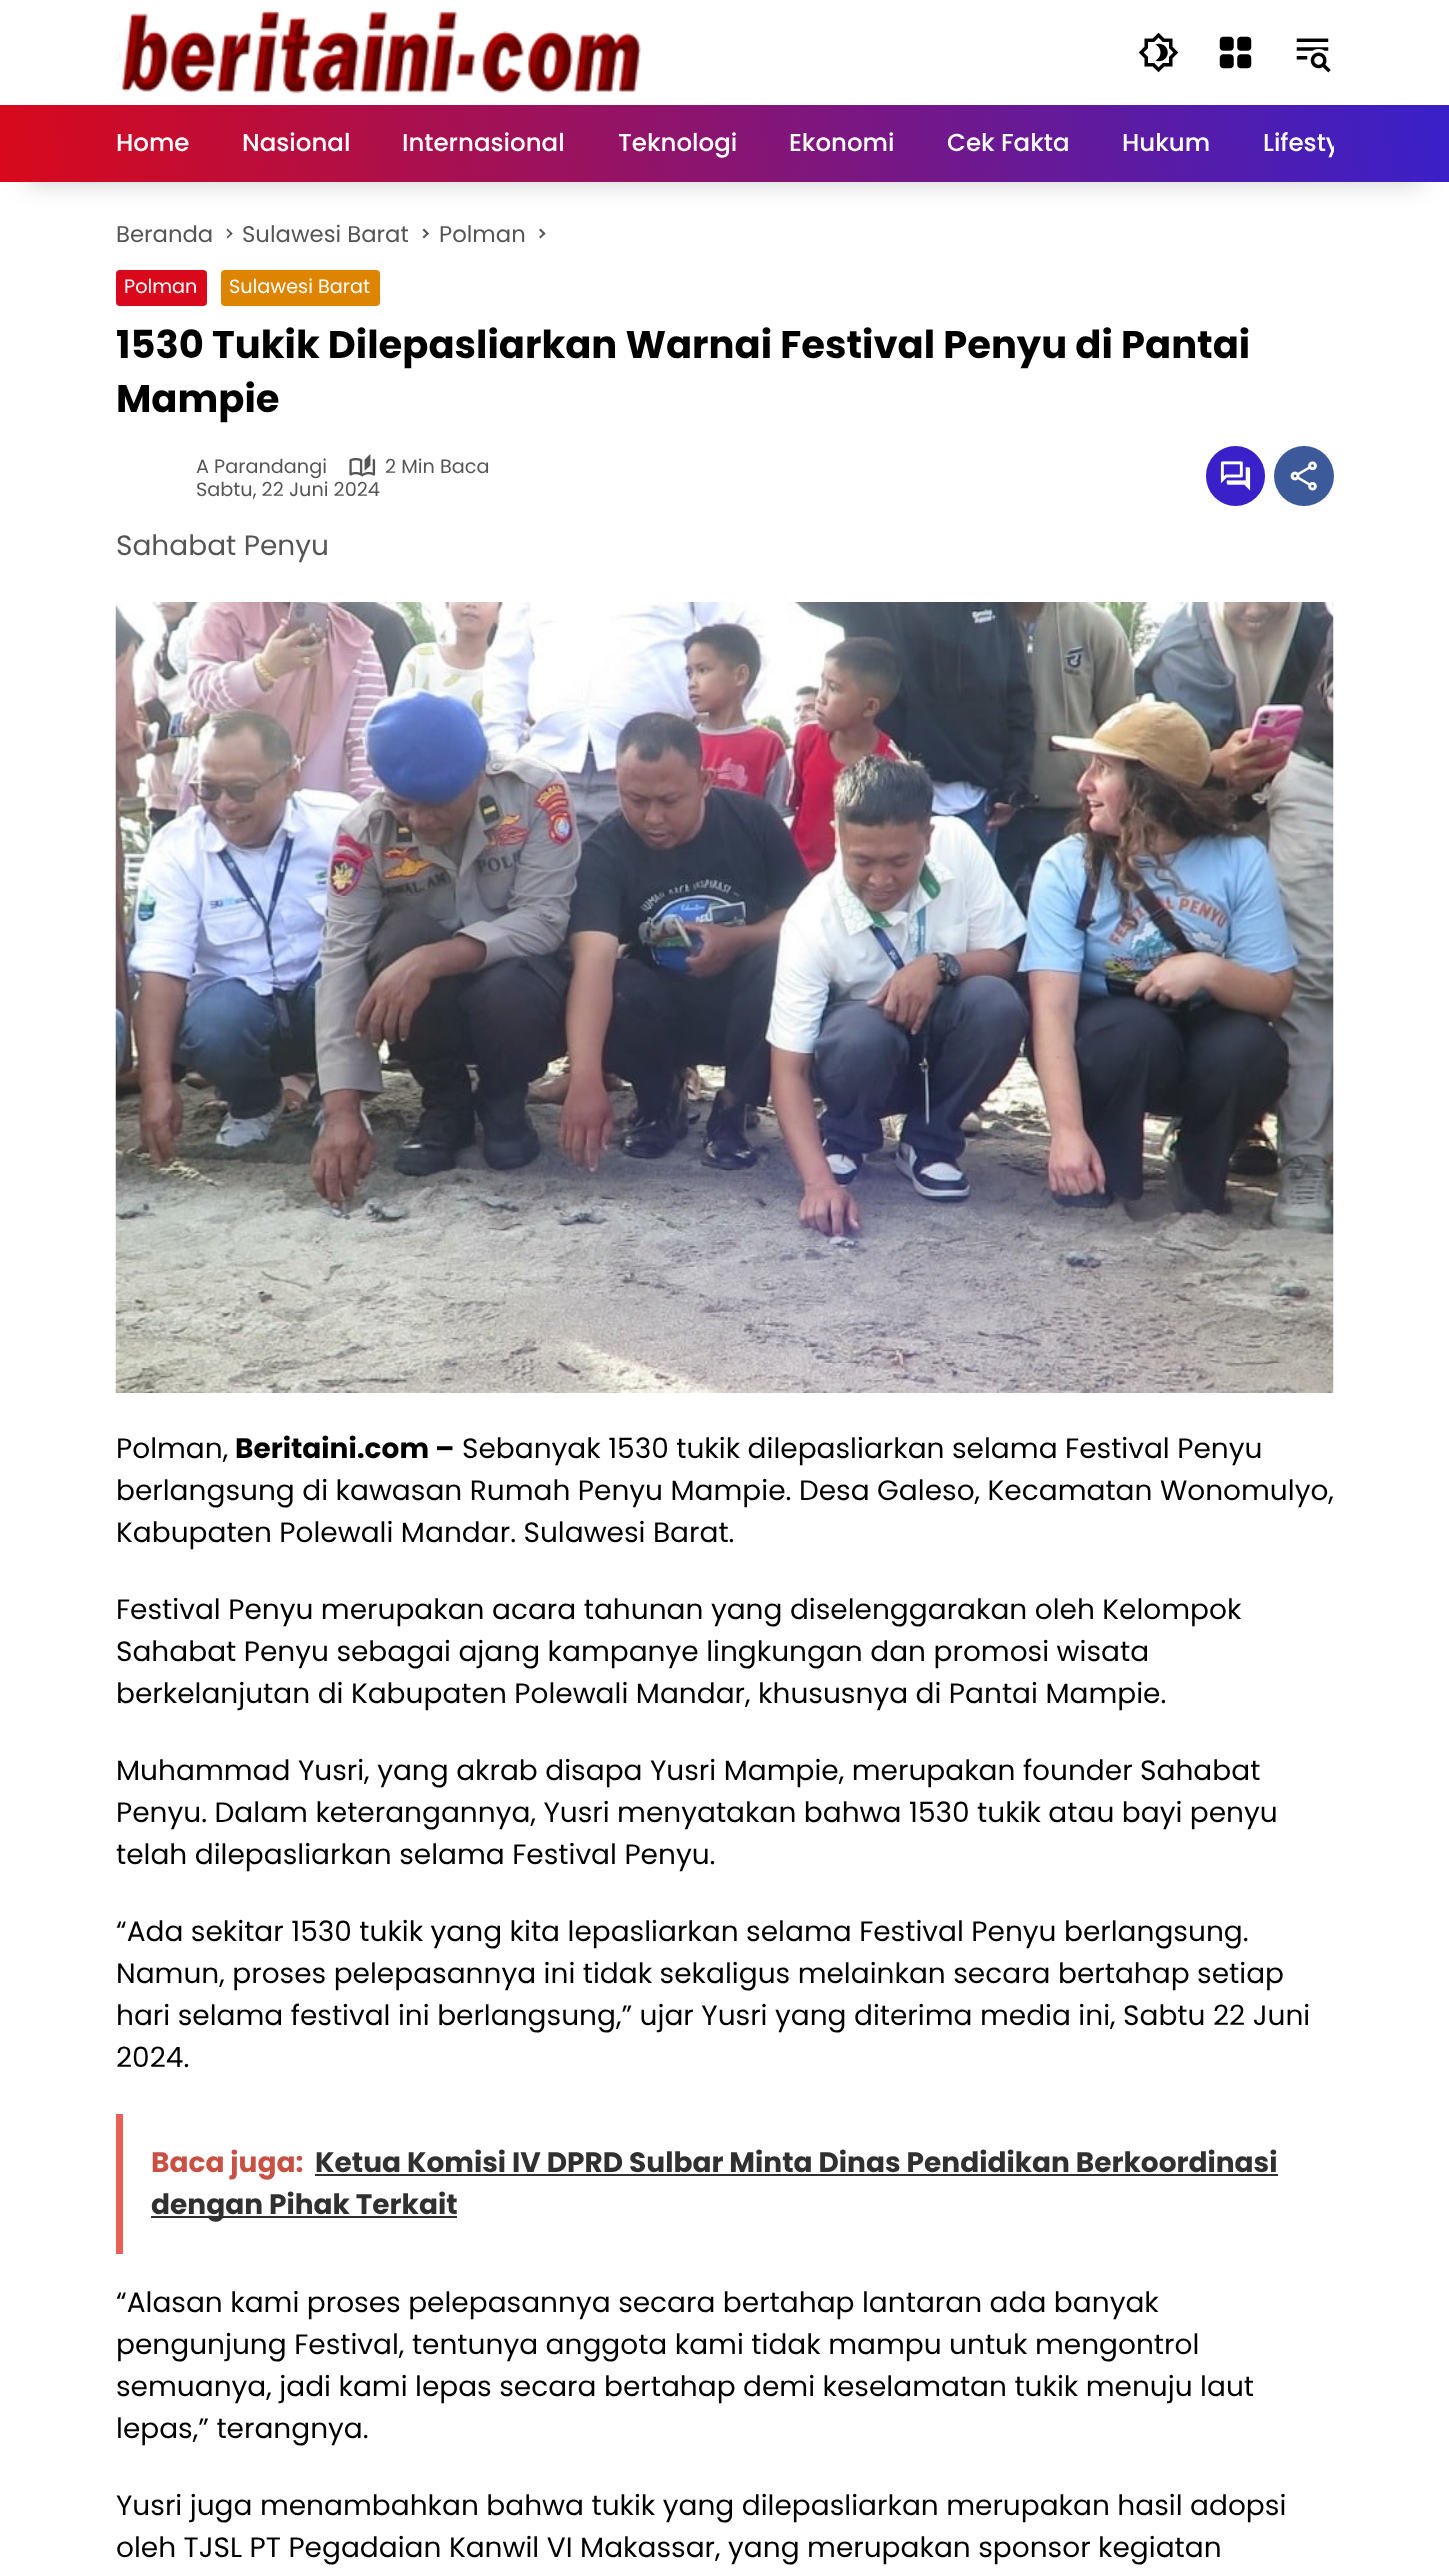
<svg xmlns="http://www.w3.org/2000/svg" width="1449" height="2570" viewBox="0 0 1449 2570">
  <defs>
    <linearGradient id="g1" gradientUnits="userSpaceOnUse" x1="15" y1="269" x2="1434" y2="18"><stop offset="0" stop-color="rgb(217,9,27)"/><stop offset="1" stop-color="rgb(57,32,201)"/></linearGradient>
    <clipPath id="clip1"><rect x="116" y="105" width="1218" height="77"/></clipPath>
  </defs>
  <rect width="100%" height="100%" fill="rgb(255,255,255)"/>
  <image x="115" y="9" width="526" height="85" href="pic1.png"/>
  <image x="1138" y="32" width="41" height="41" href="pic2.png"/>
  <image x="1219" y="36" width="33" height="33" href="pic3.png"/>
  <image x="1296" y="38" width="35" height="35" href="pic4.png"/>
  <rect x="26" y="158" width="1397" height="24" fill="rgba(0,0,0,0.2)" filter="blur(13px)"/>
  <rect x="0" y="105" width="1449" height="77" fill="url(#g1)"/>
  <g font-family="Poppins" font-size="24.5" font-weight="500" fill="rgb(255,255,255)">
    <text x="116" y="151">Home</text>
    <text x="242" y="151">Nasional</text>
    <text x="402" y="151">Internasional</text>
    <text x="618" y="151">Teknologi</text>
    <text x="789" y="151">Ekonomi</text>
    <text x="947" y="151">Cek Fakta</text>
    <text x="1122" y="151">Hukum</text>
  </g>
  <g clip-path="url(#clip1)">
    <text x="1263" y="151" font-family="Poppins" font-size="24.5" font-weight="500" fill="rgb(255,255,255)">Lifesty</text>
  </g>
  <text x="116" y="242" font-family="Poppins" font-size="22.75" fill="rgb(85,85,85)">Beranda</text>
  <path d="M226.5 230L227.5 228.5L232.5 233.5L231.5 235Z" fill="rgb(85,85,85)"/>
  <path d="M226.5 237L231.5 232.5L232.5 233.5L227.5 238.5Z" fill="rgb(85,85,85)"/>
  <text x="242" y="242" font-family="Poppins" font-size="22.75" fill="rgb(85,85,85)">Sulawesi Barat</text>
  <path d="M422.5 230L424 228.5L429 233.5L427.5 235Z" fill="rgb(85,85,85)"/>
  <path d="M422.5 237L427.5 232.5L429 233.5L424 238.5Z" fill="rgb(85,85,85)"/>
  <text x="439" y="242" font-family="Poppins" font-size="22.75" fill="rgb(85,85,85)">Polman</text>
  <path d="M539 230L540.5 228.5L545.5 233.5L544 235Z" fill="rgb(85,85,85)"/>
  <path d="M539 237L544 232.5L545.5 233.5L540.5 238.5Z" fill="rgb(85,85,85)"/>
  <rect x="116" y="270" width="91" height="36" rx="4" fill="rgb(217,9,27)"/>
  <text x="124" y="293" font-family="Poppins" font-size="19.25" fill="rgb(255,255,255)">Polman</text>
  <rect x="221" y="270" width="159" height="36" rx="4" fill="rgb(221,133,0)"/>
  <text x="229" y="293" font-family="Poppins" font-size="19.25" fill="rgb(255,255,255)">Sulawesi Barat</text>
  <g font-family="Poppins" font-size="38.5" font-weight="bold" fill="rgb(0,0,0)">
    <text>
      <tspan x="116" y="358">1530 Tukik Dilepasliarkan Warnai Festival Penyu di Pantai</tspan>
      <tspan x="116" y="412">Mampie</tspan>
    </text>
  </g>
  <text x="196" y="473" font-family="Poppins" font-size="19.25" fill="rgb(85,85,85)">A Parandangi</text>
  <image x="349" y="454" width="27" height="23" href="pic5.png"/>
  <g font-family="Poppins" font-size="19.25" fill="rgb(85,85,85)">
    <text x="385" y="473">2 Min Baca</text>
    <text x="196" y="496">Sabtu, 22 Juni 2024</text>
  </g>
  <rect x="1206" y="446" width="59" height="60" rx="29.5" fill="rgb(57,32,201)"/>
  <image x="1220" y="461" width="31" height="30" href="pic6.png"/>
  <circle cx="1304" cy="476" r="30" fill="rgb(60,90,153)"/>
  <image x="1290" y="461" width="27" height="30" href="pic7.png"/>
  <text x="116" y="555" font-family="Poppins" font-size="28" fill="rgb(85,85,85)">Sahabat Penyu</text>
  <image x="115" y="602" width="1219" height="791" href="pic8.png"/>
  <text x="116" y="1458" font-family="Poppins" font-size="28" fill="rgb(0,0,0)">Polman,</text>
  <text x="235" y="1458" font-family="Poppins" font-size="28" font-weight="bold" fill="rgb(0,0,0)">Beritaini.com –</text>
  <g font-family="Poppins" font-size="28" fill="rgb(0,0,0)">
    <text x="462" y="1458">Sebanyak 1530 tukik dilepasliarkan selama Festival Penyu</text>
    <text>
      <tspan x="116" y="1500">berlangsung di kawasan Rumah Penyu Mampie. Desa Galeso, Kecamatan Wonomulyo,</tspan>
      <tspan x="116" y="1542">Kabupaten Polewali Mandar. Sulawesi Barat.</tspan>
    </text>
    <text>
      <tspan x="116" y="1619">Festival Penyu merupakan acara tahunan yang diselenggarakan oleh Kelompok</tspan>
      <tspan x="116" y="1661">Sahabat Penyu sebagai ajang kampanye lingkungan dan promosi wisata</tspan>
      <tspan x="116" y="1703">berkelanjutan di Kabupaten Polewali Mandar, khususnya di Pantai Mampie.</tspan>
    </text>
    <text>
      <tspan x="116" y="1780">Muhammad Yusri, yang akrab disapa Yusri Mampie, merupakan founder Sahabat</tspan>
      <tspan x="116" y="1822">Penyu. Dalam keterangannya, Yusri menyatakan bahwa 1530 tukik atau bayi penyu</tspan>
      <tspan x="116" y="1864">telah dilepasliarkan selama Festival Penyu.</tspan>
    </text>
    <text>
      <tspan x="116" y="1941">“Ada sekitar 1530 tukik yang kita lepasliarkan selama Festival Penyu berlangsung.</tspan>
      <tspan x="116" y="1983">Namun, proses pelepasannya ini tidak sekaligus melainkan secara bertahap setiap</tspan>
      <tspan x="116" y="2025">hari selama festival ini berlangsung,” ujar Yusri yang diterima media ini, Sabtu 22 Juni</tspan>
      <tspan x="116" y="2067">2024.</tspan>
    </text>
  </g>
  <rect x="116" y="2114" width="7" height="140" fill="rgb(234,97,83)"/>
  <text x="151" y="2172" font-family="Poppins" font-size="28" font-weight="bold" fill="rgb(200,81,68)">Baca juga:</text>
  <text x="315" y="2172" font-family="Poppins" font-size="28" font-weight="bold" fill="rgb(48,48,48)">Ketua Komisi IV DPRD Sulbar Minta Dinas Pendidikan Berkoordinasi</text>
  <rect x="315" y="2174" width="963" height="2" fill="rgb(48,48,48)"/>
  <rect x="151" y="2216" width="306" height="2" fill="rgb(48,48,48)"/>
  <text x="151" y="2214" font-family="Poppins" font-size="28" font-weight="bold" fill="rgb(48,48,48)">dengan Pihak Terkait</text>
  <g font-family="Poppins" font-size="28" fill="rgb(0,0,0)">
    <text>
      <tspan x="116" y="2312">“Alasan kami proses pelepasannya secara bertahap lantaran ada banyak</tspan>
      <tspan x="116" y="2354">pengunjung Festival, tentunya anggota kami tidak mampu untuk mengontrol</tspan>
      <tspan x="116" y="2396">semuanya, jadi kami lepas secara bertahap demi keselamatan tukik menuju laut</tspan>
      <tspan x="116" y="2438">lepas,” terangnya.</tspan>
    </text>
    <text>
      <tspan x="116" y="2515">Yusri juga menambahkan bahwa tukik yang dilepasliarkan merupakan hasil adopsi</tspan>
      <tspan x="116" y="2557">oleh TJSL PT Pegadaian Kanwil VI Makassar, yang merupakan sponsor kegiatan</tspan>
    </text>
  </g>
</svg>
